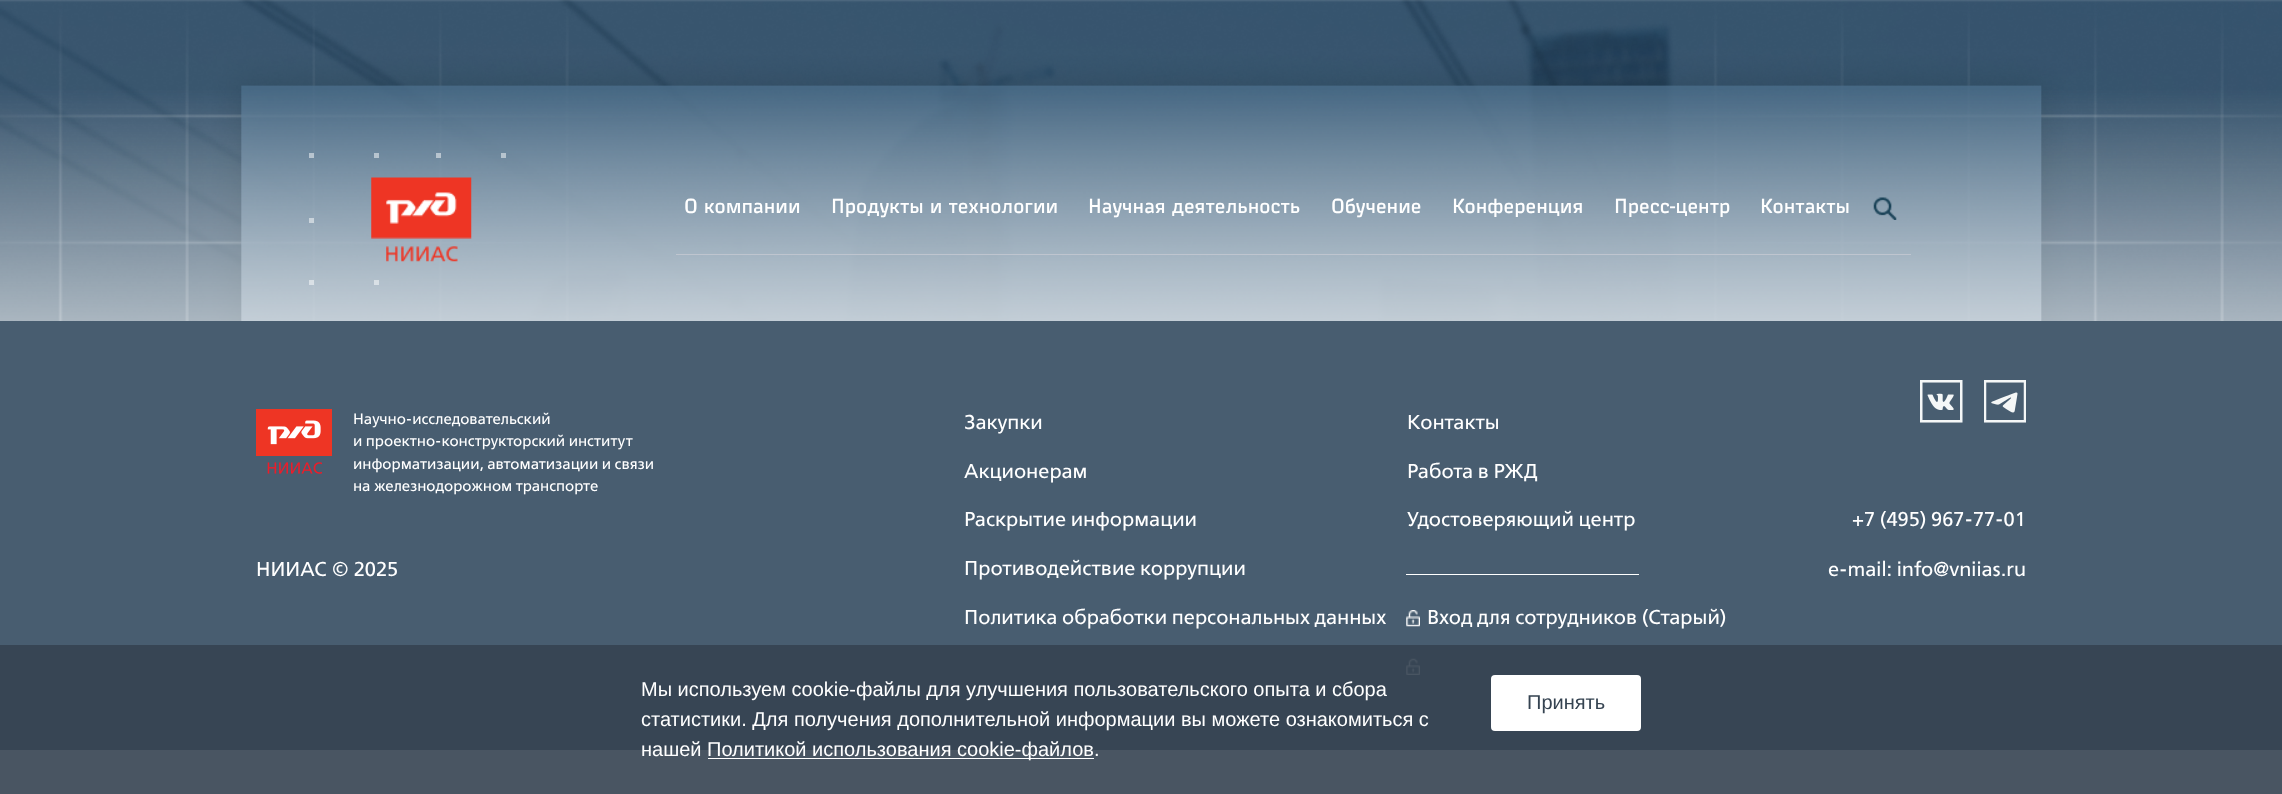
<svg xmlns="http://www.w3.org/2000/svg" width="2282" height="794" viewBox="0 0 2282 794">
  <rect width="100%" height="100%" fill="rgb(255,255,255)"/>
  <image x="0" y="0" width="2282" height="794" href="pic1.png"/>
  <rect x="309" y="153" width="5" height="5" fill="rgba(255,255,255,0.5)"/>
  <rect x="374" y="153" width="5" height="5" fill="rgba(255,255,255,0.5)"/>
  <rect x="436" y="153" width="5" height="5" fill="rgba(255,255,255,0.5)"/>
  <rect x="501" y="153" width="5" height="5" fill="rgb(183,196,206)"/>
  <rect x="309" y="218" width="5" height="5" fill="rgba(255,255,255,0.5)"/>
  <rect x="309" y="280" width="5" height="5" fill="rgba(255,255,255,0.5)"/>
  <rect x="374" y="280" width="5" height="5" fill="rgba(255,255,255,0.5)"/>
  <image x="371" y="177" width="101" height="85" href="pic2.png"/>
  <g font-family="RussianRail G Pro" font-size="20" fill="rgb(255,255,255)">
    <text x="684" y="213">О компании</text>
    <text x="831" y="213">Продукты и технологии</text>
    <text x="1088" y="213">Научная деятельность</text>
    <text x="1331" y="213">Обучение</text>
    <text x="1452" y="213">Конференция</text>
    <text x="1614" y="213">Пресс-центр</text>
    <text x="1760" y="213">Контакты</text>
  </g>
  <image x="1873" y="197" width="24" height="23" href="pic3.png"/>
  <rect x="676" y="254" width="1235" height="1" fill="rgb(191,197,207)"/>
  <rect x="0" y="321" width="2282" height="429" fill="rgb(72,93,112)"/>
  <image x="256" y="409" width="76" height="65" href="pic4.png"/>
  <g font-family="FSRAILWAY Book" font-size="15" fill="rgb(255,255,255)">
    <text>
      <tspan x="353" y="424">Научно-исследовательский</tspan>
      <tspan x="353" y="446">и проектно-конструкторский институт</tspan>
      <tspan x="353" y="469">информатизации, автоматизации и связи</tspan>
      <tspan x="353" y="491">на железнодорожном транспорте</tspan>
    </text>
  </g>
  <g font-family="FSRAILWAY Book" font-size="20" fill="rgb(255,255,255)">
    <text x="256" y="576">НИИАС © 2025</text>
    <text x="964" y="429">Закупки</text>
    <text x="964" y="478">Акционерам</text>
    <text x="964" y="526">Раскрытие информации</text>
    <text x="964" y="575">Противодействие коррупции</text>
    <text x="964" y="624">Политика обработки персональных данных</text>
    <text x="1407" y="429">Контакты</text>
    <text x="1407" y="478">Работа в РЖД</text>
    <text x="1407" y="526">Удостоверяющий центр</text>
  </g>
  <rect x="1406" y="574" width="233" height="1" fill="rgb(255,255,255)"/>
  <image x="1406" y="610" width="14" height="17" href="pic5.png"/>
  <text x="1427" y="624" font-family="FSRAILWAY Book" font-size="20" fill="rgb(255,255,255)">Вход для сотрудников (Старый)</text>
  <image x="1406" y="658" width="14" height="17" href="pic6.png"/>
  <image x="1920" y="380" width="43" height="43" href="pic7.png"/>
  <image x="1984" y="380" width="42" height="43" href="pic8.png"/>
  <g font-family="FSRAILWAY Book" font-size="20" fill="rgb(255,255,255)">
    <text x="1852" y="526">+7 (495) 967-77-01</text>
    <text x="1828" y="576">e-mail: info@vniias.ru</text>
  </g>
  <rect x="0" y="645" width="2282" height="149" fill="rgba(53,67,81,0.9)"/>
  <g font-family="Liberation Sans" font-size="20" fill="rgb(255,255,255)">
    <text>
      <tspan x="641" y="696">Мы используем cookie-файлы для улучшения пользовательского опыта и сбора</tspan>
      <tspan x="641" y="726">статистики. Для получения дополнительной информации вы можете ознакомиться с</tspan>
      <tspan x="641" y="756">нашей</tspan>
    </text>
  </g>
  <rect x="708" y="758" width="386" height="1" fill="rgb(255,255,255)"/>
  <text x="707" y="756" font-family="Liberation Sans" font-size="20" fill="rgb(255,255,255)">Политикой использования cookie-файлов.</text>
  <rect x="1491" y="675" width="150" height="56" rx="4" fill="rgb(255,255,255)"/>
  <text x="1527" y="709" font-family="Liberation Sans" font-size="20" fill="rgb(53,67,81)">Принять</text>
</svg>
